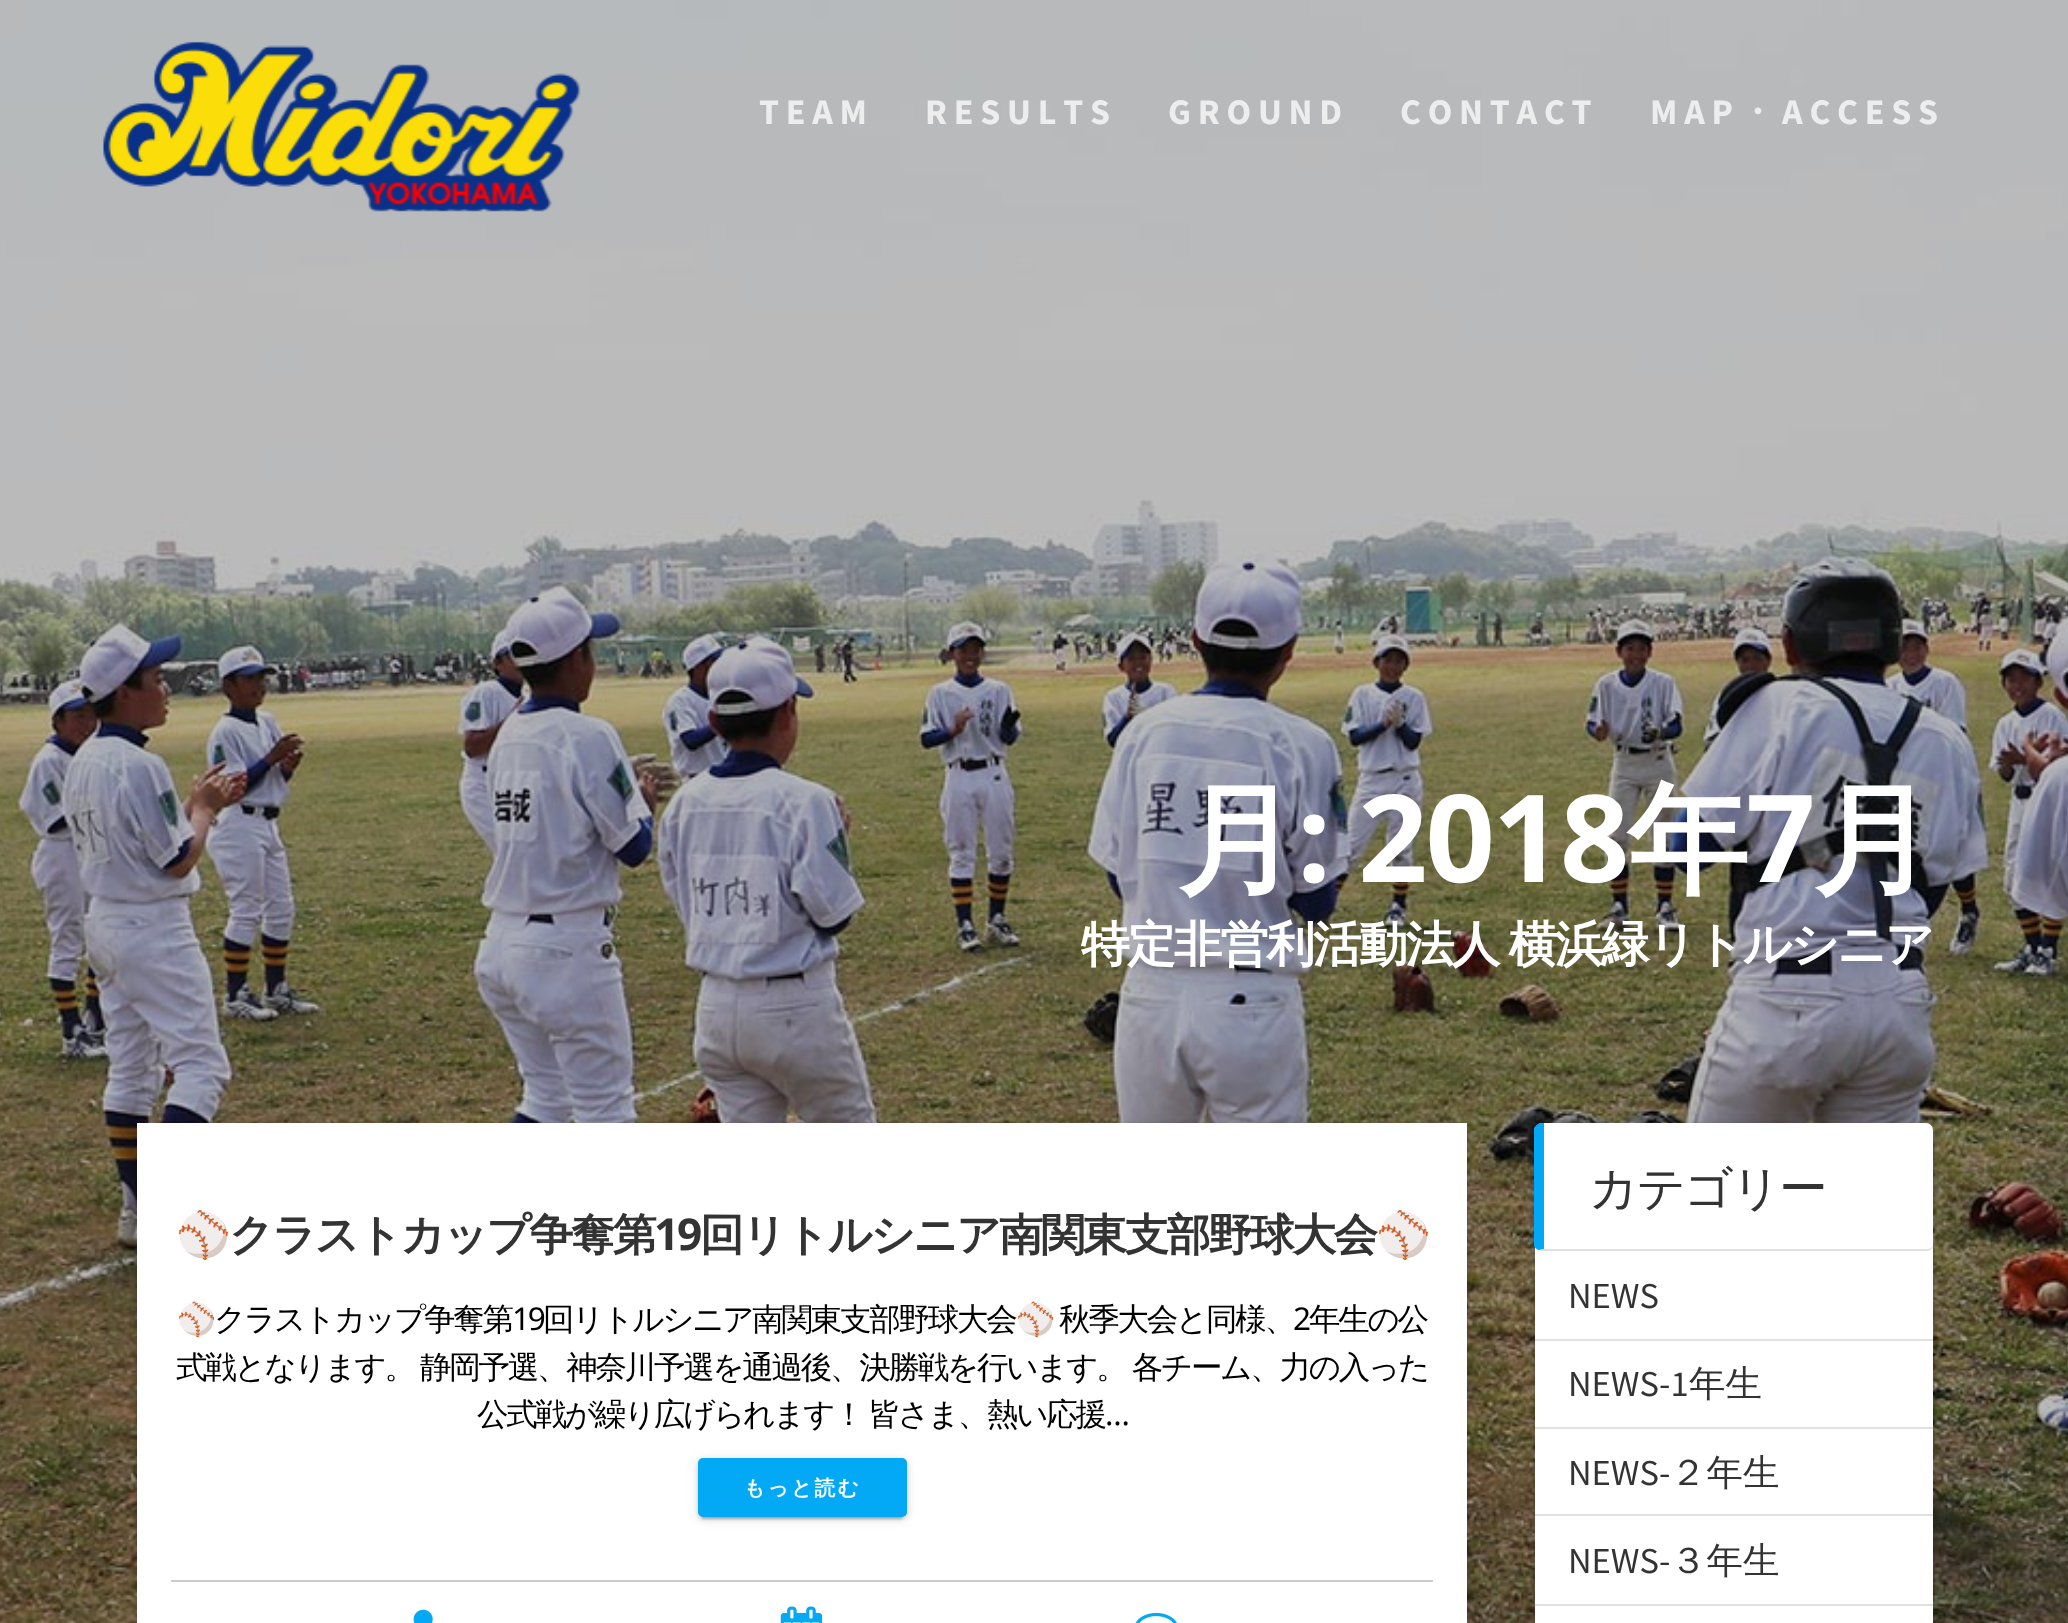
<svg xmlns="http://www.w3.org/2000/svg" width="2068" height="1623" viewBox="0 0 2068 1623">
  <style>*{font-kerning:none!important;font-variant-ligatures:none!important}</style>
  <rect width="100%" height="100%" fill="rgb(255,255,255)"/>
  <image x="0" y="0" width="2068" height="1623" href="pic2.png"/>
  <image x="103" y="41" width="478" height="171" href="pic1.png"/>
  <g font-family="Source Sans Pro" font-size="36" font-weight="bold" letter-spacing="6.75" fill="rgb(237,237,237)">
    <text x="759" y="124">TEAM</text>
    <text x="925" y="124">RESULTS</text>
    <text x="1168" y="124">GROUND</text>
    <text x="1400" y="124">CONTACT</text>
    <text x="1650" y="124">MAP</text>
  </g>
  <text x="1739" y="124" font-family="WenQuanYi Zen Hei" font-size="36" font-weight="bold" letter-spacing="6.75" fill="rgb(237,237,237)">・</text>
  <text x="1782" y="124" font-family="Source Sans Pro" font-size="36" font-weight="bold" letter-spacing="6.75" fill="rgb(237,237,237)">ACCESS</text>
  <text x="1177" y="882" font-family="WenQuanYi Zen Hei" font-size="121.5" font-weight="bold" letter-spacing="-2.25" fill="rgb(255,255,255)">月</text>
  <text x="1297" y="882" font-family="Noto Sans" font-size="121.5" font-weight="bold" letter-spacing="-2.25" fill="rgb(255,255,255)">: 2018</text>
  <text x="1627" y="882" font-family="WenQuanYi Zen Hei" font-size="121.5" font-weight="bold" letter-spacing="-2.25" fill="rgb(255,255,255)">年</text>
  <text x="1746" y="882" font-family="Noto Sans" font-size="121.5" font-weight="bold" letter-spacing="-2.25" fill="rgb(255,255,255)">7</text>
  <text x="1813" y="882" font-family="WenQuanYi Zen Hei" font-size="121.5" font-weight="bold" letter-spacing="-2.25" fill="rgb(255,255,255)">月</text>
  <text x="1081" y="961" word-spacing="-2" font-family="WenQuanYi Zen Hei" font-size="48.6" font-weight="bold" letter-spacing="-2.25" fill="rgb(255,255,255)">特定非営利活動法人 横浜緑リトルシニア</text>
  <rect x="137" y="1125" width="1330" height="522" rx="7" fill="rgba(0,0,0,0.12)" filter="blur(5.5px)"/>
  <rect x="137" y="1125" width="1330" height="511" rx="7" fill="rgba(0,0,0,0.14)" filter="blur(2px)"/>
  <rect x="137" y="1123" width="1330" height="500" fill="rgb(255,255,255)"/>
  <text x="176" y="1250" font-family="Noto Color Emoji" font-size="44.1" font-weight="bold" letter-spacing="-2.25" fill="rgb(51,51,51)">⚾</text>
  <text x="229" y="1250" font-family="WenQuanYi Zen Hei" font-size="44.1" font-weight="bold" letter-spacing="-2.25" fill="rgb(51,51,51)">クラストカップ争奪第</text>
  <text x="654" y="1250" font-family="Noto Sans" font-size="44.1" font-weight="bold" letter-spacing="-2.25" fill="rgb(51,51,51)">19</text>
  <text x="700" y="1250" font-family="WenQuanYi Zen Hei" font-size="44.1" font-weight="bold" letter-spacing="-2.25" fill="rgb(51,51,51)">回リトルシニア南関東支部野球大会</text>
  <text x="1376" y="1250" font-family="Noto Color Emoji" font-size="44.1" font-weight="bold" letter-spacing="-2.25" fill="rgb(51,51,51)">⚾</text>
  <text x="177" y="1330" font-family="Noto Color Emoji" font-size="31.5" letter-spacing="-2.25" fill="rgb(0,0,0)">⚾</text>
  <text x="214" y="1330" font-family="WenQuanYi Zen Hei" font-size="31.5" font-weight="500" letter-spacing="-2.25" fill="rgb(0,0,0)">クラストカップ争奪第</text>
  <text x="512" y="1330" font-family="Noto Sans" font-size="31.5" letter-spacing="-2.25" fill="rgb(0,0,0)">19</text>
  <text x="543" y="1330" font-family="WenQuanYi Zen Hei" font-size="31.5" font-weight="500" letter-spacing="-2.25" fill="rgb(0,0,0)">回リトルシニア南関東支部野球大会</text>
  <text x="1016" y="1330" font-family="Noto Color Emoji" font-size="31.5" letter-spacing="-2.25" fill="rgb(0,0,0)">⚾</text>
  <text x="1059" y="1330" font-family="WenQuanYi Zen Hei" font-size="31.5" font-weight="500" letter-spacing="-2.25" fill="rgb(0,0,0)">秋季大会と同様、</text>
  <text x="1293" y="1330" font-family="Noto Sans" font-size="31.5" letter-spacing="-2.25" fill="rgb(0,0,0)">2</text>
  <g font-family="WenQuanYi Zen Hei" font-size="31.5" font-weight="500" letter-spacing="-2.25" fill="rgb(0,0,0)">
    <text x="1309" y="1330">年生の公</text>
    <text x="176" y="1378" word-spacing="-1">式戦となります。 静岡予選、神奈川予選を通過後、決勝戦を行います。 各チーム、力の入った</text>
    <text x="477" y="1425" word-spacing="-1">公式戦が繰り広げられます！ 皆さま、熱い応援</text>
  </g>
  <text x="1105" y="1425" font-family="Noto Sans" font-size="31.5" letter-spacing="-2.25" fill="rgb(0,0,0)">…</text>
  <rect x="698" y="1460" width="209" height="59" rx="5" fill="rgba(0,0,0,0.12)" filter="blur(5.5px)"/>
  <rect x="702" y="1469" width="200" height="50" fill="rgba(0,0,0,0.2)" filter="blur(1px)"/>
  <rect x="698" y="1460" width="209" height="59" rx="5" fill="rgba(0,0,0,0.14)" filter="blur(2px)"/>
  <rect x="698" y="1458" width="209" height="59" rx="5" fill="rgb(3,169,244)"/>
  <text x="744" y="1495" font-family="WenQuanYi Zen Hei" font-size="20.75" font-weight="bold" letter-spacing="2.25" fill="rgb(255,255,255)">もっと読む</text>
  <rect x="171" y="1580" width="1262" height="2" fill="rgb(204,204,204)"/>
  <image x="413" y="1609" width="20" height="14" href="pic3.png"/>
  <image x="780" y="1606" width="43" height="17" href="pic4.png"/>
  <image x="1135" y="1612" width="42" height="11" href="pic5.png"/>
  <rect x="1535" y="1125" width="398" height="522" rx="7" fill="rgba(0,0,0,0.12)" filter="blur(5.5px)"/>
  <rect x="1535" y="1125" width="398" height="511" rx="7" fill="rgba(0,0,0,0.14)" filter="blur(2px)"/>
  <rect x="1535" y="1123" width="398" height="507" rx="7" fill="rgb(255,255,255)"/>
  <path d="M1541 1251H1926C1929 1251 1933 1249 1933 1245C1932 1248 1929 1249 1926 1249H1544L1538 1250Z" fill="rgb(224,224,224)"/>
  <path d="M1541 1123H1544V1249L1538 1250C1537 1249 1535 1248 1534 1246V1128C1536 1125 1539 1123 1541 1123Z" fill="rgb(3,168,244)"/>
  <text x="1589" y="1205" font-family="WenQuanYi Zen Hei" font-size="48.6" font-weight="500" letter-spacing="-2.25" fill="rgb(51,51,51)">カテゴリー</text>
  <rect x="1535" y="1339" width="398" height="2" fill="rgb(224,224,224)"/>
  <text x="1568" y="1308" font-family="Source Sans Pro" font-size="36.5" fill="rgb(51,51,51)">NEWS</text>
  <rect x="1535" y="1427" width="398" height="2" fill="rgb(224,224,224)"/>
  <text x="1568" y="1396" font-family="Source Sans Pro" font-size="36.5" fill="rgb(51,51,51)">NEWS-1</text>
  <text x="1689" y="1396" font-family="WenQuanYi Zen Hei" font-size="36.5" font-weight="500" fill="rgb(51,51,51)">年生</text>
  <rect x="1535" y="1514" width="398" height="2" fill="rgb(224,224,224)"/>
  <text x="1568" y="1485" font-family="Source Sans Pro" font-size="36.5" fill="rgb(51,51,51)">NEWS-</text>
  <text x="1670" y="1485" font-family="WenQuanYi Zen Hei" font-size="36.5" font-weight="500" fill="rgb(51,51,51)">２年生</text>
  <rect x="1535" y="1604" width="398" height="2" fill="rgb(224,224,224)"/>
  <text x="1568" y="1573" font-family="Source Sans Pro" font-size="36.5" fill="rgb(51,51,51)">NEWS-</text>
  <text x="1670" y="1573" font-family="WenQuanYi Zen Hei" font-size="36.5" font-weight="500" fill="rgb(51,51,51)">３年生</text>
</svg>
